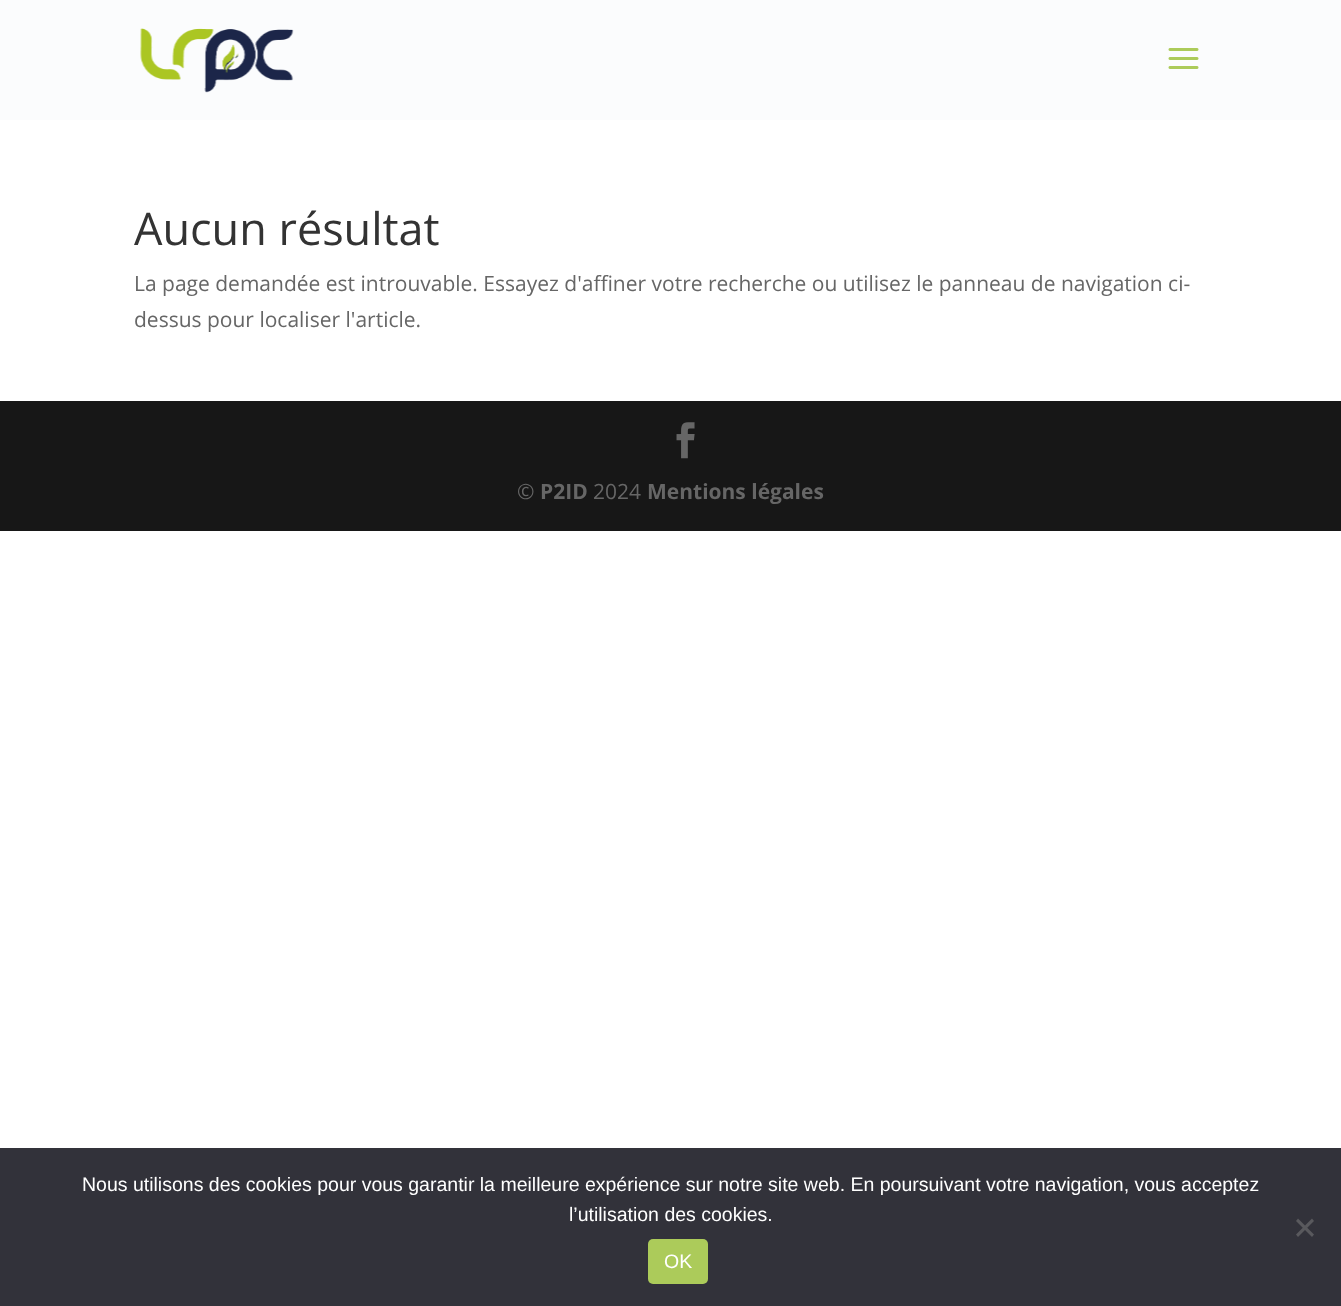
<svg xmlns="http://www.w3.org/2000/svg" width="1341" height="1306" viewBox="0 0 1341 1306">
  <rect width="100%" height="100%" fill="rgb(255,255,255)"/>
  <rect x="0" y="0" width="1341" height="120" fill="rgb(251,252,253)"/>
  <image x="140" y="28" width="154" height="65" href="pic1.png"/>
  <image x="1168" y="48" width="31" height="21" href="pic2.png"/>
  <text x="134" y="245" font-family="Open Sans" font-size="45" fill="rgb(51,51,51)">Aucun résultat</text>
  <g font-family="Open Sans" font-size="21" fill="rgb(102,102,102)">
    <text>
      <tspan x="134" y="291">La page demandée est introuvable. Essayez d'affiner votre recherche ou utilisez le panneau de navigation ci-</tspan>
      <tspan x="134" y="327">dessus pour localiser l'article.</tspan>
    </text>
  </g>
  <rect x="0" y="401" width="1341" height="130" fill="rgb(23,23,23)"/>
  <image x="676" y="422" width="19" height="37" href="pic3.png"/>
  <text x="517" y="499" font-family="Open Sans" font-size="21" fill="rgb(102,102,102)">©</text>
  <text x="540" y="499" font-family="Open Sans" font-size="21" font-weight="bold" fill="rgb(102,102,102)">P2ID</text>
  <text x="593" y="499" font-family="Open Sans" font-size="21" fill="rgb(102,102,102)">2024</text>
  <text x="647" y="499" font-family="Open Sans" font-size="21" font-weight="bold" fill="rgb(102,102,102)">Mentions légales</text>
  <rect x="0" y="1148" width="1341" height="158" fill="rgb(50,50,58)"/>
  <g font-family="Liberation Sans" font-size="19.5" fill="rgb(255,255,255)">
    <text x="82" y="1191">Nous utilisons des cookies pour vous garantir la meilleure expérience sur notre site web. En poursuivant votre navigation, vous acceptez</text>
    <text x="569" y="1221">l’utilisation des cookies.</text>
  </g>
  <path d="M1312 1218.5L1314 1221L1298 1237L1296 1234.5Z" fill="rgb(89,89,93)"/>
  <path d="M1296 1221L1298 1218.5L1314 1234.5L1312 1237Z" fill="rgb(89,89,93)"/>
  <rect x="648" y="1239" width="60" height="45" rx="5" fill="rgb(172,203,90)"/>
  <text x="664" y="1268" font-family="Liberation Sans" font-size="19.5" fill="rgb(255,255,255)">OK</text>
</svg>
